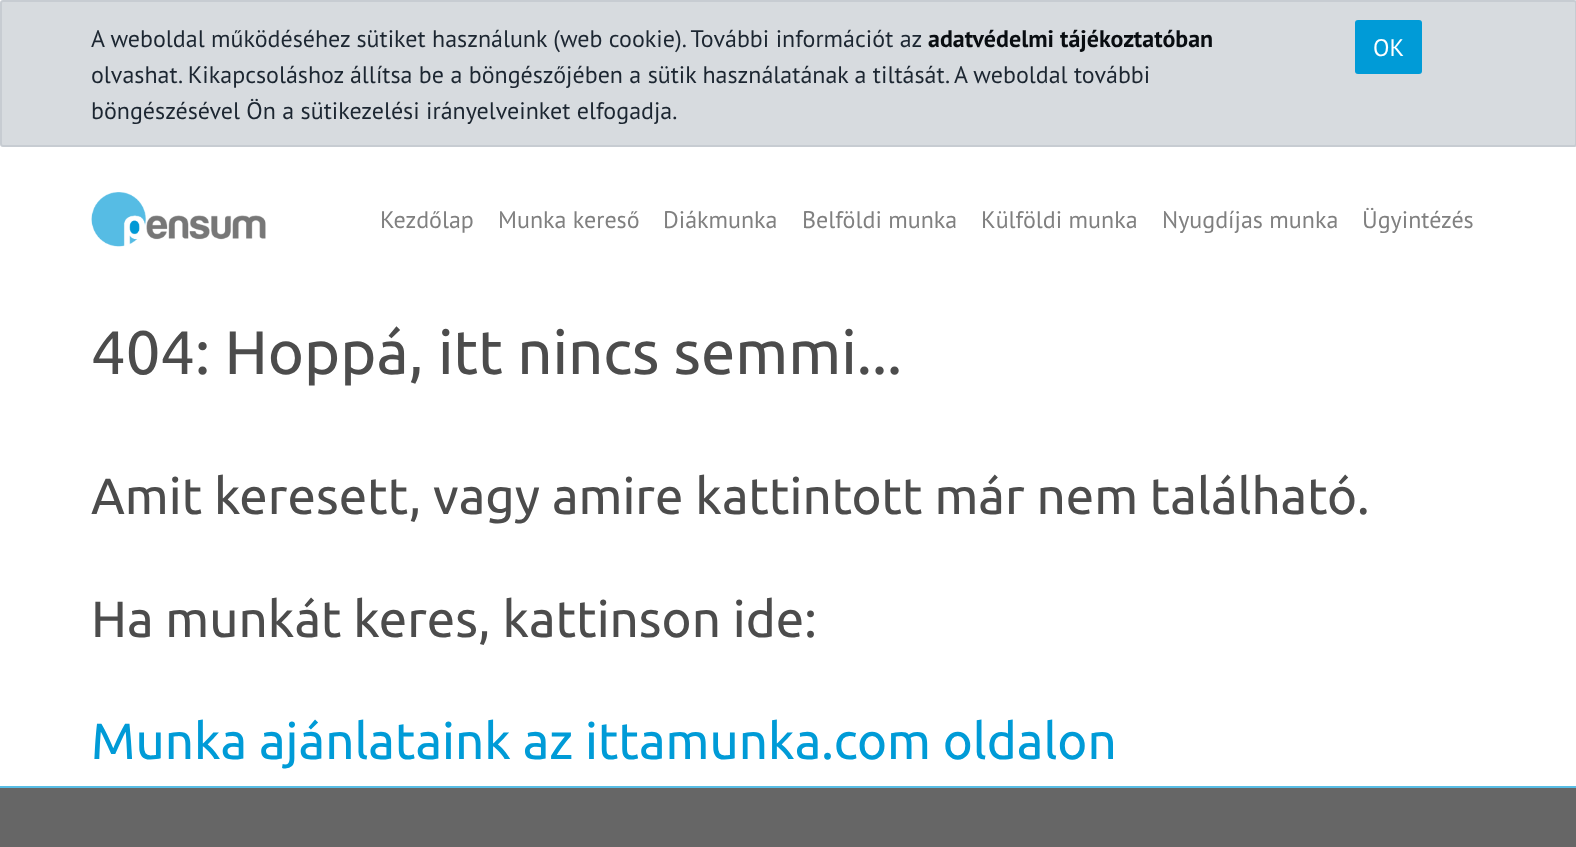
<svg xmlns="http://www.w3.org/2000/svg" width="1576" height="847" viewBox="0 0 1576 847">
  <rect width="100%" height="100%" fill="rgb(255,255,255)"/>
  <rect x="1" y="1" width="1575" height="145" rx="2" fill="rgb(215,219,223)" stroke="rgb(199,204,210)" stroke-width="2"/>
  <text x="91" y="47" font-family="PT Sans" font-size="24" fill="rgb(28,38,49)">A weboldal működéséhez sütiket használunk (web cookie). További információt az</text>
  <text x="928" y="47" font-family="PT Sans" font-size="24" font-weight="bold" fill="rgb(9,13,17)">adatvédelmi tájékoztatóban</text>
  <g font-family="PT Sans" font-size="24" fill="rgb(28,38,49)">
    <text>
      <tspan x="91" y="83">olvashat. Kikapcsoláshoz állítsa be a böngészőjében a sütik használatának a tiltását. A weboldal további</tspan>
      <tspan x="91" y="119">böngészésével Ön a sütikezelési irányelveinket elfogadja.</tspan>
    </text>
  </g>
  <rect x="1355" y="20" width="67" height="54" rx="3" fill="rgb(0,155,215)"/>
  <text x="1373" y="56" font-family="PT Sans" font-size="24" fill="rgb(255,255,255)">OK</text>
  <image x="91" y="192" width="175" height="55" href="pic1.png"/>
  <g font-family="PT Sans" font-size="24" fill="rgb(128,128,128)">
    <text x="380" y="228">Kezdőlap</text>
    <text x="498" y="228">Munka kereső</text>
    <text x="663" y="228">Diákmunka</text>
    <text x="802" y="228">Belföldi munka</text>
    <text x="981" y="228">Külföldi munka</text>
    <text x="1162" y="228">Nyugdíjas munka</text>
    <text x="1362" y="228">Ügyintézés</text>
  </g>
  <text x="91" y="374" font-family="Ubuntu" font-size="61.5" fill="rgb(76,76,76)">404: Hoppá, itt nincs semmi...</text>
  <g font-family="Ubuntu" font-size="51" fill="rgb(76,76,76)">
    <text x="91" y="514">Amit keresett, vagy amire kattintott már nem található.</text>
    <text x="91" y="637">Ha munkát keres, kattinson ide:</text>
  </g>
  <text x="91" y="759" font-family="Ubuntu" font-size="51" fill="rgb(0,155,215)">Munka ajánlataink az ittamunka.com oldalon</text>
  <rect x="0" y="786" width="1576" height="2" fill="rgb(87,189,229)"/>
  <rect x="0" y="788" width="1576" height="59" fill="rgb(102,102,102)"/>
</svg>
